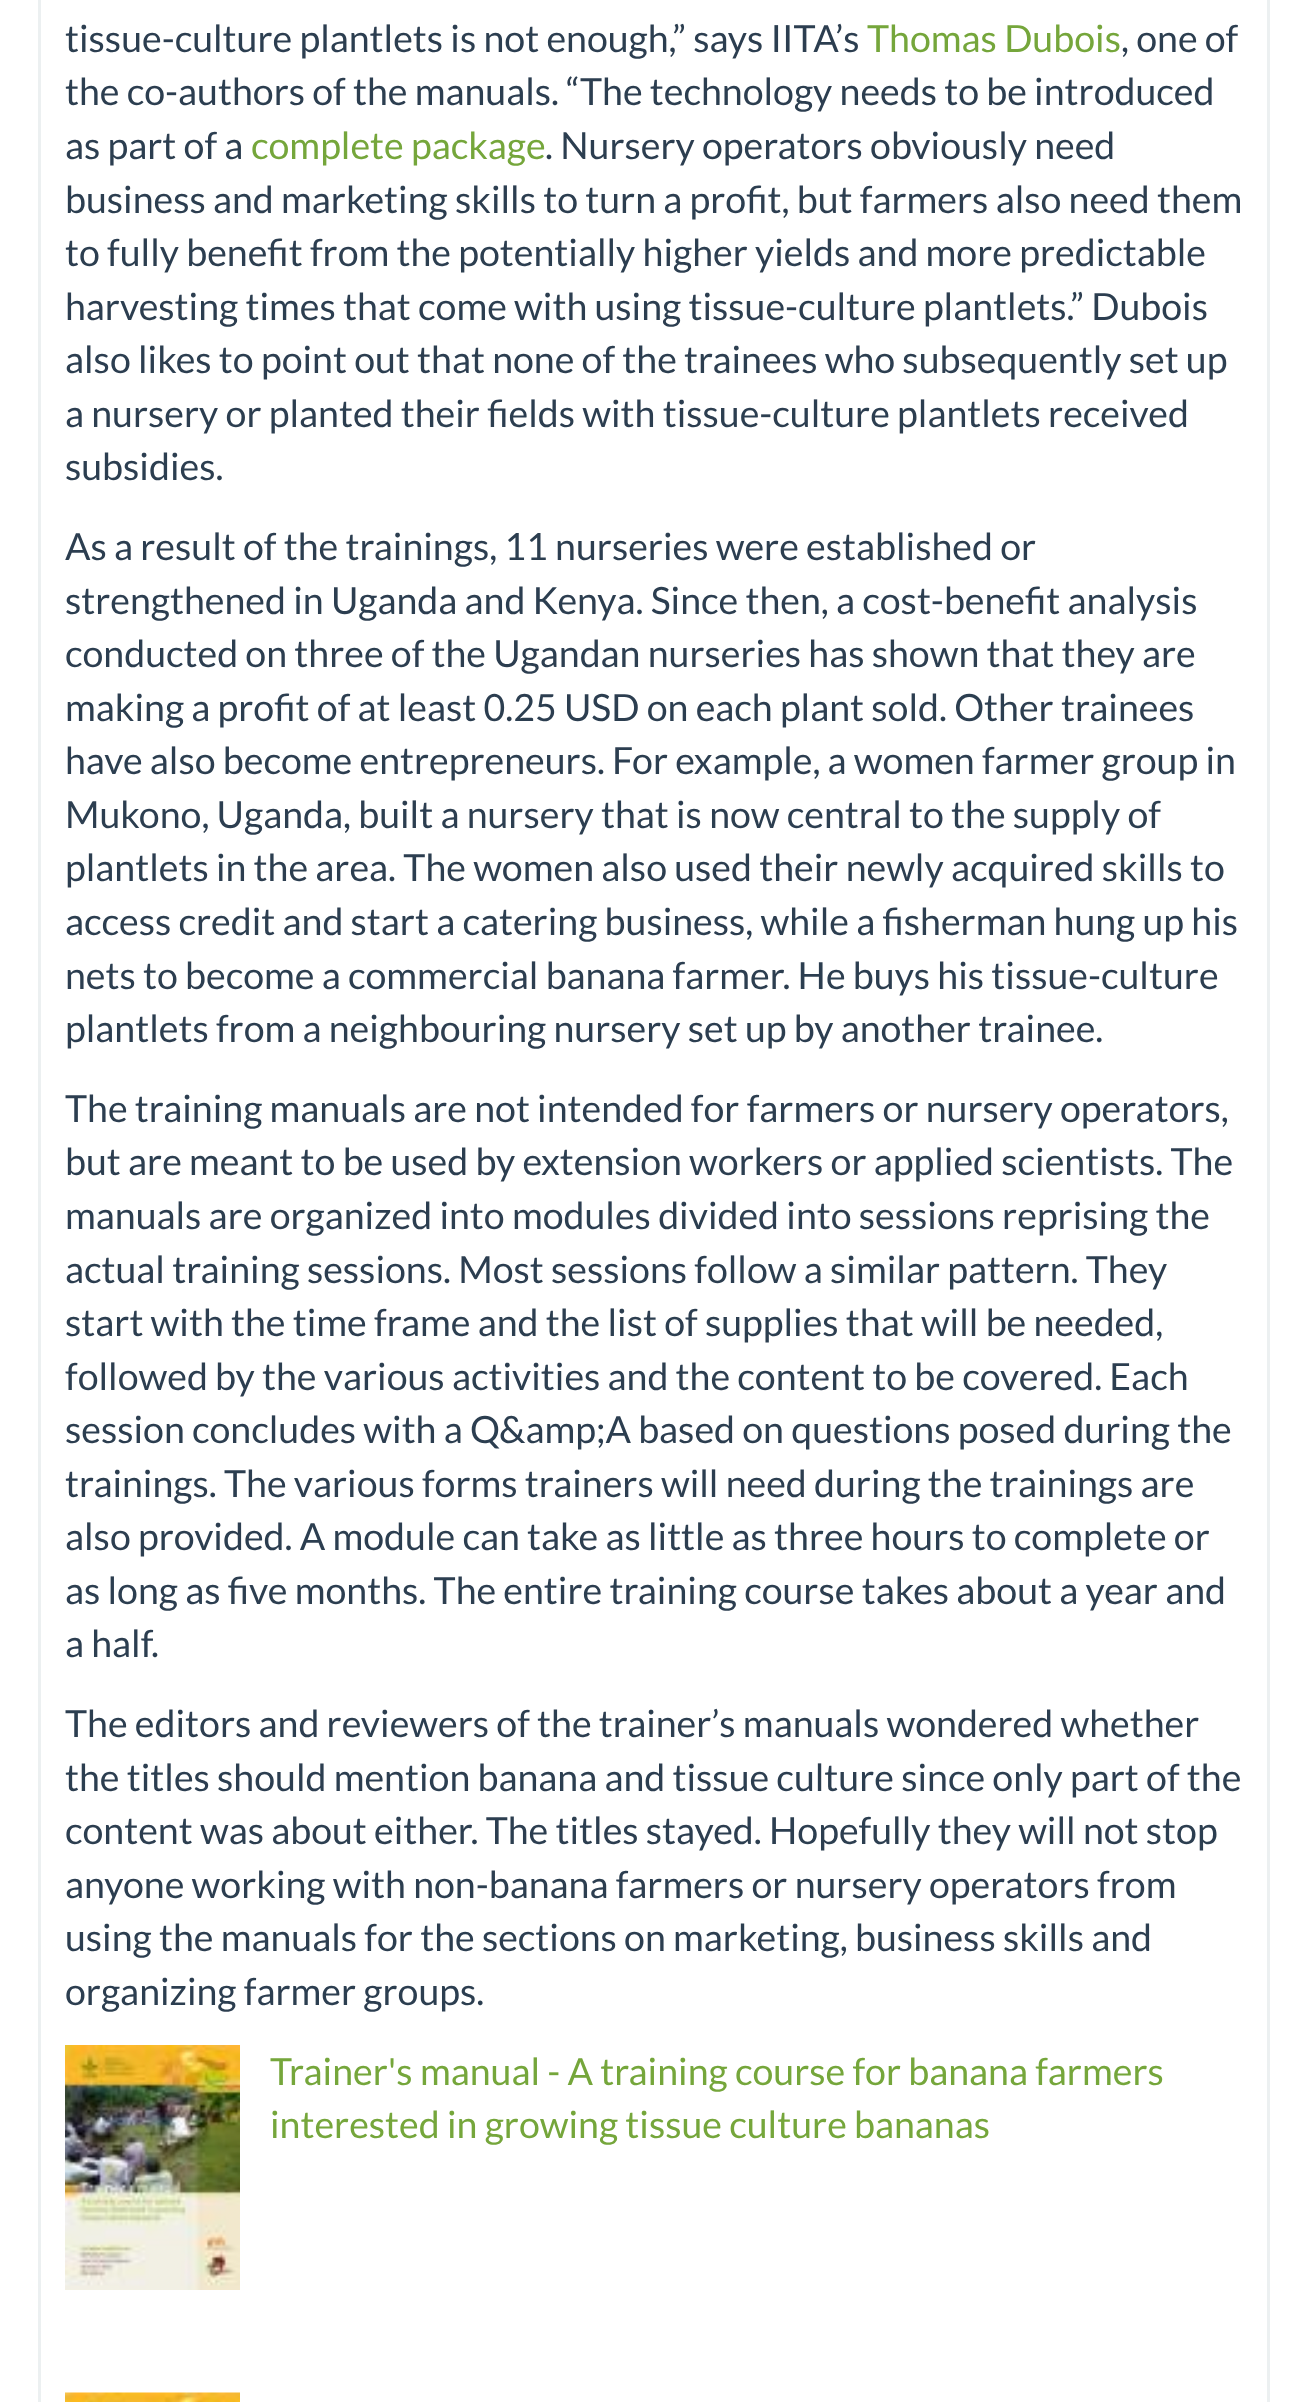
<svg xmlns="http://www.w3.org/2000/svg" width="1306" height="2402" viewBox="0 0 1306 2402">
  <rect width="100%" height="100%" fill="rgb(255,255,255)"/>
  <rect x="39.5" y="-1.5" width="1229" height="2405" fill="none" stroke="rgb(236,240,241)" stroke-width="3"/>
  <text x="65" y="52" font-family="Lato" font-size="37.5" fill="rgb(44,62,80)">tissue-culture plantlets is not enough,” says IITA’s</text>
  <text x="867" y="52" font-family="Lato" font-size="37.5" fill="rgb(117,166,59)">Thomas Dubois</text>
  <g font-family="Lato" font-size="37.5" fill="rgb(44,62,80)">
    <text x="1121" y="52">, one of</text>
    <text>
      <tspan x="65" y="105">the co-authors of the manuals. “The technology needs to be introduced</tspan>
      <tspan x="65" y="159">as part of a</tspan>
    </text>
  </g>
  <text x="251" y="159" font-family="Lato" font-size="37.5" fill="rgb(117,166,59)">complete package</text>
  <g font-family="Lato" font-size="37.5" fill="rgb(44,62,80)">
    <text x="545" y="159">. Nursery operators obviously need</text>
    <text>
      <tspan x="65" y="213">business and marketing skills to turn a profit, but farmers also need them</tspan>
      <tspan x="65" y="266">to fully benefit from the potentially higher yields and more predictable</tspan>
      <tspan x="65" y="320">harvesting times that come with using tissue-culture plantlets.” Dubois</tspan>
      <tspan x="65" y="373">also likes to point out that none of the trainees who subsequently set up</tspan>
      <tspan x="65" y="427">a nursery or planted their fields with tissue-culture plantlets received</tspan>
      <tspan x="65" y="480">subsidies.</tspan>
    </text>
    <text>
      <tspan x="65" y="560">As a result of the trainings, 11 nurseries were established or</tspan>
      <tspan x="65" y="614">strengthened in Uganda and Kenya. Since then, a cost-benefit analysis</tspan>
      <tspan x="65" y="667">conducted on three of the Ugandan nurseries has shown that they are</tspan>
      <tspan x="65" y="721">making a profit of at least 0.25 USD on each plant sold. Other trainees</tspan>
      <tspan x="65" y="774">have also become entrepreneurs. For example, a women farmer group in</tspan>
      <tspan x="65" y="828">Mukono, Uganda, built a nursery that is now central to the supply of</tspan>
      <tspan x="65" y="881">plantlets in the area. The women also used their newly acquired skills to</tspan>
      <tspan x="65" y="935">access credit and start a catering business, while a fisherman hung up his</tspan>
      <tspan x="65" y="989">nets to become a commercial banana farmer. He buys his tissue-culture</tspan>
      <tspan x="65" y="1042">plantlets from a neighbouring nursery set up by another trainee.</tspan>
    </text>
    <text>
      <tspan x="65" y="1122">The training manuals are not intended for farmers or nursery operators,</tspan>
      <tspan x="65" y="1175">but are meant to be used by extension workers or applied scientists. The</tspan>
      <tspan x="65" y="1229">manuals are organized into modules divided into sessions reprising the</tspan>
      <tspan x="65" y="1283">actual training sessions. Most sessions follow a similar pattern. They</tspan>
      <tspan x="65" y="1336">start with the time frame and the list of supplies that will be needed,</tspan>
      <tspan x="65" y="1390">followed by the various activities and the content to be covered. Each</tspan>
      <tspan x="65" y="1443">session concludes with a Q&amp;amp;A based on questions posed during the</tspan>
      <tspan x="65" y="1497">trainings. The various forms trainers will need during the trainings are</tspan>
      <tspan x="65" y="1550">also provided. A module can take as little as three hours to complete or</tspan>
      <tspan x="65" y="1604">as long as five months. The entire training course takes about a year and</tspan>
      <tspan x="65" y="1657">a half.</tspan>
    </text>
    <text>
      <tspan x="65" y="1737">The editors and reviewers of the trainer’s manuals wondered whether</tspan>
      <tspan x="65" y="1791">the titles should mention banana and tissue culture since only part of the</tspan>
      <tspan x="65" y="1844">content was about either. The titles stayed. Hopefully they will not stop</tspan>
      <tspan x="65" y="1898">anyone working with non-banana farmers or nursery operators from</tspan>
      <tspan x="65" y="1951">using the manuals for the sections on marketing, business skills and</tspan>
      <tspan x="65" y="2005">organizing farmer groups.</tspan>
    </text>
  </g>
  <image x="65" y="2045" width="175" height="245" href="pic1.png"/>
  <g font-family="Lato" font-size="37.5" fill="rgb(117,166,59)">
    <text>
      <tspan x="270" y="2085">Trainer's manual - A training course for banana farmers</tspan>
      <tspan x="270" y="2138">interested in growing tissue culture bananas</tspan>
    </text>
  </g>
  <image x="65" y="2392" width="175" height="10" href="pic2.png"/>
</svg>
